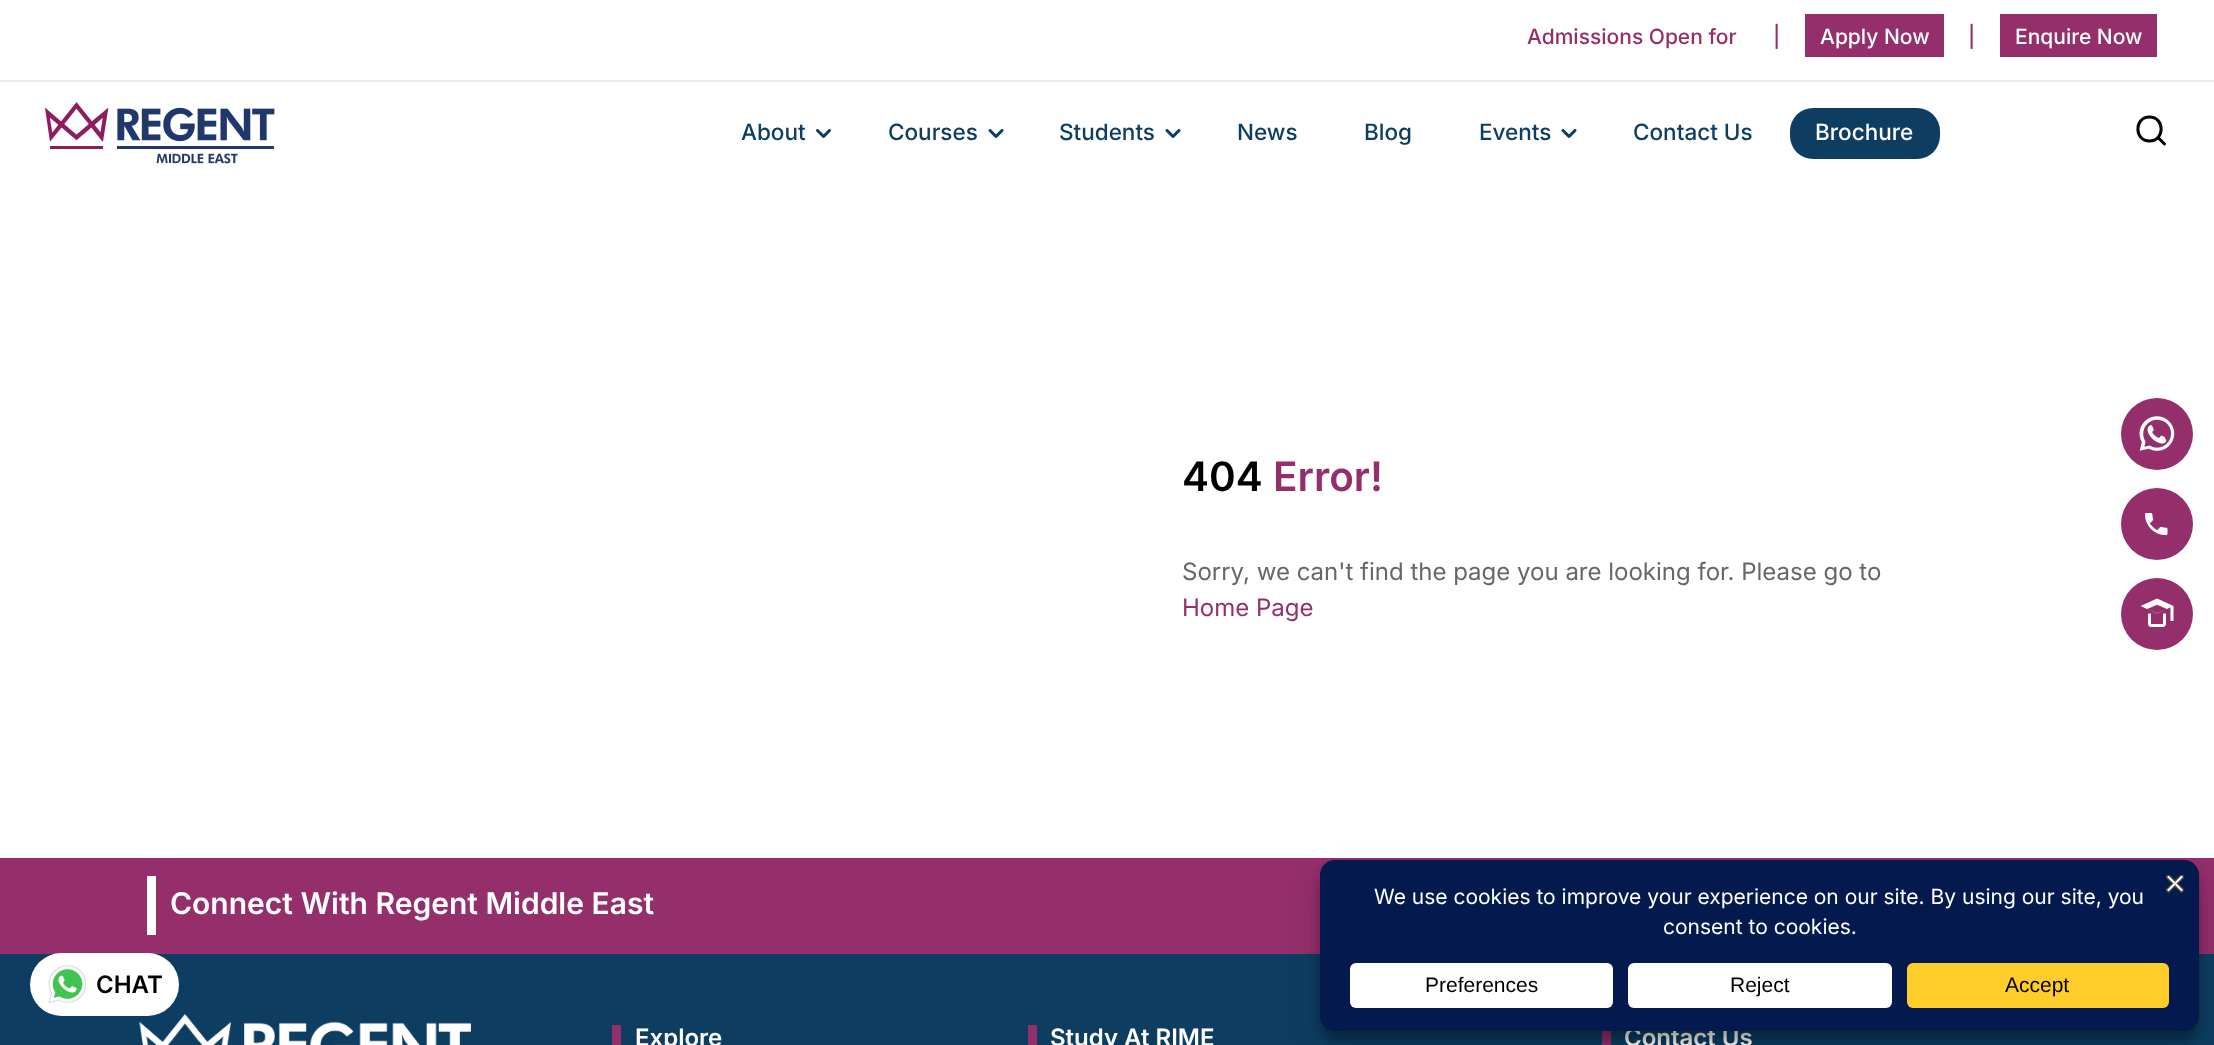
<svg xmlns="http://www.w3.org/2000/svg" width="2214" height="1045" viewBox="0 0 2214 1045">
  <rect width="100%" height="100%" fill="rgb(255,255,255)"/>
  <rect x="0" y="80" width="2214" height="2" fill="rgb(234,234,234)"/>
  <g font-family="Inter" font-size="21" font-weight="500" fill="rgb(148,47,108)">
    <text x="1527" y="44">Admissions Open for</text>
    <text x="1773" y="44">|</text>
  </g>
  <rect x="1805" y="14" width="139" height="43" fill="rgb(148,47,108)"/>
  <text x="1820" y="44" font-family="Inter" font-size="21" font-weight="500" fill="rgb(255,255,255)">Apply Now</text>
  <text x="1968" y="44" font-family="Inter" font-size="21" font-weight="500" fill="rgb(148,47,108)">|</text>
  <rect x="2000" y="14" width="157" height="43" fill="rgb(148,47,108)"/>
  <text x="2015" y="44" font-family="Inter" font-size="21" font-weight="500" fill="rgb(255,255,255)">Enquire Now</text>
  <image x="45" y="102" width="230" height="62" href="pic1.png"/>
  <text x="741" y="140" font-family="Inter" font-size="22.5" font-weight="500" fill="rgb(13,62,98)">About</text>
  <image x="816" y="129" width="15" height="9" href="pic2.png"/>
  <text x="888" y="140" font-family="Inter" font-size="22.5" font-weight="500" fill="rgb(13,62,98)">Courses</text>
  <image x="988" y="129" width="16" height="9" href="pic3.png"/>
  <text x="1059" y="140" font-family="Inter" font-size="22.5" font-weight="500" fill="rgb(13,62,98)">Students</text>
  <image x="1165" y="129" width="16" height="9" href="pic3.png"/>
  <g font-family="Inter" font-size="22.5" font-weight="500" fill="rgb(13,62,98)">
    <text x="1237" y="140">News</text>
    <text x="1364" y="140">Blog</text>
    <text x="1479" y="140">Events</text>
  </g>
  <image x="1561" y="129" width="16" height="9" href="pic3.png"/>
  <text x="1633" y="140" font-family="Inter" font-size="22.5" font-weight="500" fill="rgb(13,62,98)">Contact Us</text>
  <rect x="1790" y="108" width="150" height="51" rx="23" fill="rgb(13,62,98)"/>
  <text x="1815" y="140" font-family="Inter" font-size="22.5" font-weight="500" fill="rgb(255,255,255)">Brochure</text>
  <path d="M2149.5 141C2165 141 2165 117 2149.5 117C2134 117 2134 141 2149.5 141ZM2164.5 144L2158 137.5" fill="none" stroke="rgb(0,0,0)" stroke-width="3" stroke-linecap="round" stroke-linejoin="round"/>
  <text x="1182" y="491" font-family="Inter" font-size="40.5" font-weight="600" fill="rgb(0,0,0)">404</text>
  <text x="1273" y="491" font-family="Inter" font-size="40.5" font-weight="600" fill="rgb(148,47,108)">Error!</text>
  <text x="1182" y="580" font-family="Inter" font-size="24" fill="rgb(102,102,102)">Sorry, we can't find the page you are looking for. Please go to</text>
  <text x="1182" y="616" font-family="Inter" font-size="24" fill="rgb(148,47,108)">Home Page</text>
  <rect x="0" y="858" width="2214" height="96" fill="rgb(148,47,108)"/>
  <rect x="147" y="876" width="9" height="59" fill="rgb(255,255,255)"/>
  <text x="170" y="914" font-family="Inter" font-size="30" font-weight="600" fill="rgb(255,255,255)">Connect With Regent Middle East</text>
  <rect x="0" y="954" width="2214" height="91" fill="rgb(13,62,98)"/>
  <image x="139" y="1014" width="332" height="31" href="pic4.png"/>
  <rect x="612" y="1025" width="9" height="20" fill="rgb(148,47,108)"/>
  <text x="635" y="1046" font-family="Inter" font-size="24" font-weight="600" fill="rgb(255,255,255)">Explore</text>
  <rect x="1028" y="1025" width="9" height="20" fill="rgb(148,47,108)"/>
  <text x="1050" y="1046" font-family="Inter" font-size="24" font-weight="600" fill="rgb(255,255,255)">Study At RIME</text>
  <rect x="1602" y="1031" width="9" height="14" fill="rgb(148,47,108)"/>
  <text x="1624" y="1046" font-family="Inter" font-size="24" font-weight="600" fill="rgb(255,255,255)">Contact Us</text>
  <circle cx="2157" cy="434" r="36" fill="rgb(148,47,108)"/>
  <image x="2139" y="416" width="36" height="35" href="pic5.png"/>
  <circle cx="2157" cy="524" r="36" fill="rgb(148,47,108)"/>
  <image x="2145" y="513" width="23" height="23" href="pic6.png"/>
  <circle cx="2157" cy="614" r="36" fill="rgb(148,47,108)"/>
  <image x="2140" y="598" width="34" height="29" href="pic7.png"/>
  <rect x="30" y="953" width="149" height="63" rx="31.5" fill="rgb(255,255,255)"/>
  <image x="48" y="965" width="39" height="38" href="pic8.png"/>
  <text x="96" y="993" font-family="Inter" font-size="24" font-weight="600" fill="rgb(0,0,0)">CHAT</text>
  <rect x="1320" y="869" width="879" height="171" rx="15" fill="rgba(0,0,0,0.23)" filter="blur(4.5px)"/>
  <rect x="1320" y="875" width="879" height="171" rx="15" fill="rgba(0,0,0,0.19)" filter="blur(15px)"/>
  <rect x="1320" y="860" width="879" height="171" rx="15" fill="rgb(4,25,78)"/>
  <image x="2166" y="875" width="18" height="18" href="pic9.png"/>
  <g font-family="Inter" font-size="21" fill="rgb(255,255,255)">
    <text x="1374" y="904">We use cookies to improve your experience on our site. By using our site, you</text>
    <text x="1663" y="934">consent to cookies.</text>
  </g>
  <rect x="1350" y="963" width="263" height="45" rx="6" fill="rgb(255,255,255)"/>
  <text x="1425" y="992" font-family="Liberation Sans" font-size="21" fill="rgb(0,0,0)">Preferences</text>
  <rect x="1628" y="963" width="264" height="45" rx="6" fill="rgb(255,255,255)"/>
  <text x="1730" y="992" font-family="Liberation Sans" font-size="21" fill="rgb(0,0,0)">Reject</text>
  <rect x="1907" y="963" width="262" height="45" rx="6" fill="rgb(255,205,42)"/>
  <text x="2005" y="992" font-family="Liberation Sans" font-size="21" fill="rgb(0,0,0)">Accept</text>
</svg>
